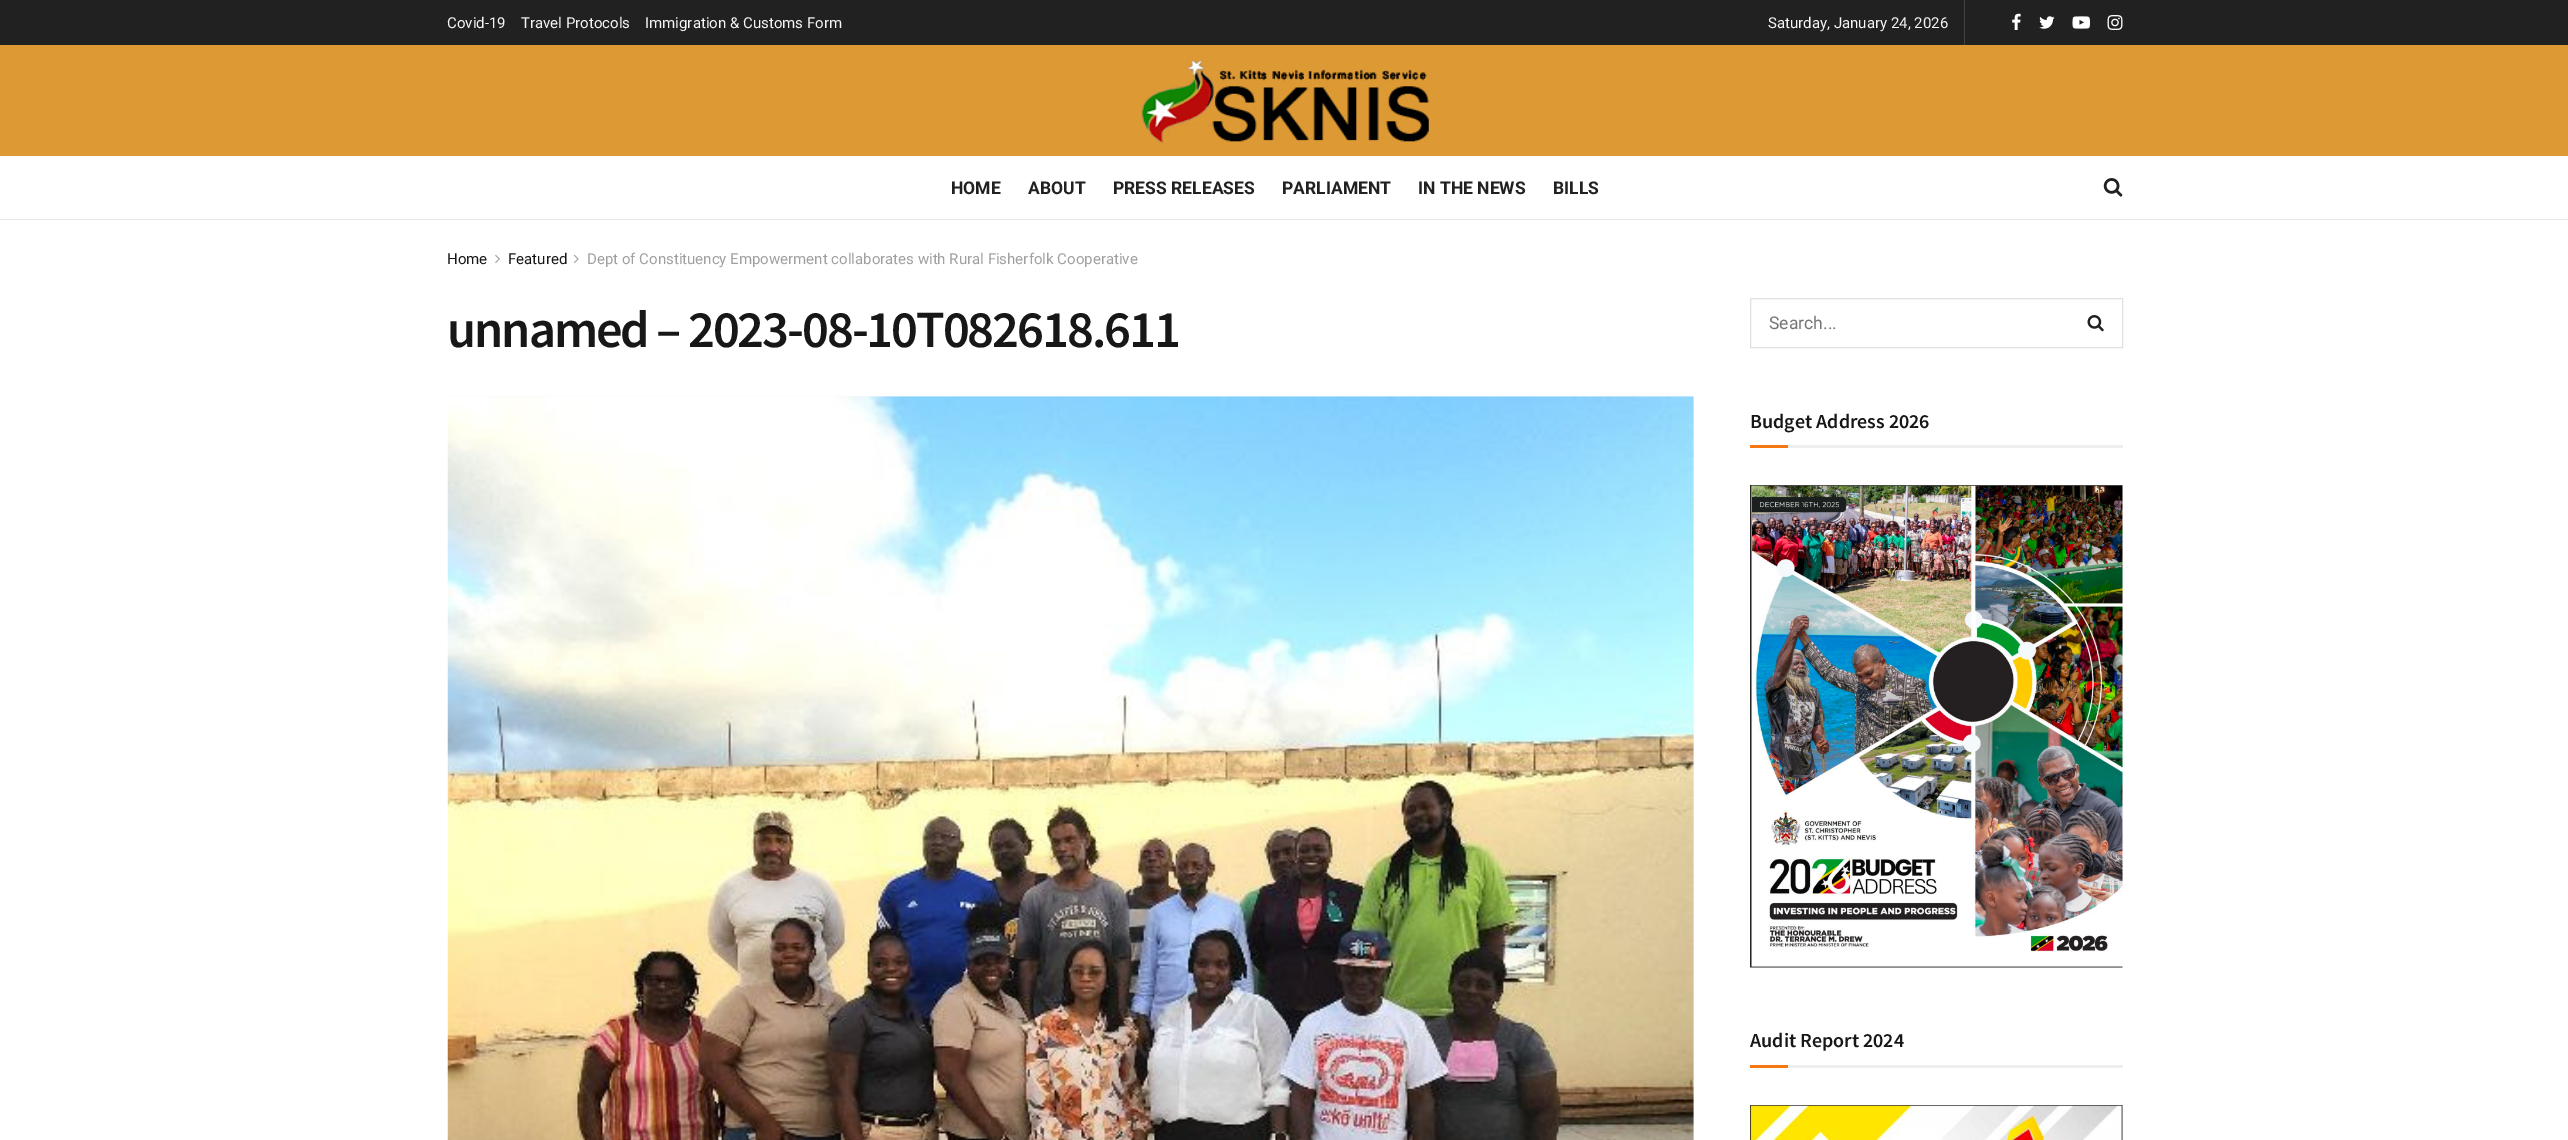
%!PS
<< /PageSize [2568 1140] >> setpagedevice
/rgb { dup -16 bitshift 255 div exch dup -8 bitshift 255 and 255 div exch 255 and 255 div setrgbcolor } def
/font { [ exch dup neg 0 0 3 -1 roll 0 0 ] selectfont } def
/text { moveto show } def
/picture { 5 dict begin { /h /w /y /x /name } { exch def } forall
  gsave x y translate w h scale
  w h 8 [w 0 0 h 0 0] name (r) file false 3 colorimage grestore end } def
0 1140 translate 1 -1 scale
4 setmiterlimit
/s1 { /Roboto-Regular 15 font 16#F5F5F5 rgb } def
/s2 { /Roboto-Bold 17.5 font 16#212121 rgb } def
/s3 { /Roboto-Regular 15 font 16#171717 rgb } def
/s4 { /Roboto-Regular 15 font 16#A0A0A0 rgb } def
/s5 { /Roboto-Regular 17.5 font 16#757575 rgb } def
/s6 { /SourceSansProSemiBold-SemiBold 20 font 16#171717 rgb } def
16#FFFFFF rgb
0 0 2568 1140 rectfill
16#212121 rgb
0 0 2568 45 rectfill
s1
(Covid-19) 447 28 text
(Travel Protocols) 521 28 text
(Immigration & Customs Form) 645 28 text
16#424242 rgb
1964 0 1 45 rectfill
s1
(Saturday, January 24, 2026) 1768 28 text
(pic1.raw) 2012 13 9 17 picture
(pic2.raw) 2039 16 16 13 picture
(pic3.raw) 2072 16 18 13 picture
(pic4.raw) 2107 15 16 15 picture
16#DD9933 rgb
0 45 2568 111 rectfill
(pic5.raw) 1141 60 288 84 picture
16#E8E8E8 rgb
0 219 2568 1 rectfill
s2
(HOME) 951 194 text
(ABOUT) 1028 194 text
(PRESS RELEASES) 1113 194 text
(PARLIAMENT) 1282 194 text
(IN THE NEWS) 1418 194 text
(BILLS) 1553 194 text
(pic6.raw) 2103 178 20 19 picture
s3
(Home) 447 264 text
(pic7.raw) 495 254 5 9 picture
(Featured) 508 264 text
(pic8.raw) 573 254 6 9 picture
s4
(Dept of Constituency Empowerment collaborates with Rural Fisherfolk Cooperative) 587 264 text
/SourceSansProSemiBold-SemiBold 52.5 font
16#171717 rgb
447 347 moveto -2.1 0 (unnamed – 2023-08-10T082618.611) ashow
16#F7F7F7 rgb
448 396 1246 744 rectfill
(pic9.raw) 447 396 1247 744 picture
16#E0E0E0 rgb
1750.5 298.5 372 49 rectstroke
s5
(Search...) 1769 329 text
(pic10.raw) 2087 315 17 17 picture
16#EEEEEE rgb
1788 445 335 3 rectfill
s6
(Budget Address 2026) 1750 428 text
16#F57811 rgb
1750 445 38 3 rectfill
(pic11.raw) 1750 485 373 483 picture
16#EEEEEE rgb
1788 1065 335 3 rectfill
s6
(Audit Report 2024) 1750 1047 text
16#F57811 rgb
1750 1065 38 3 rectfill
(pic12.raw) 1750 1105 373 35 picture
showpage
